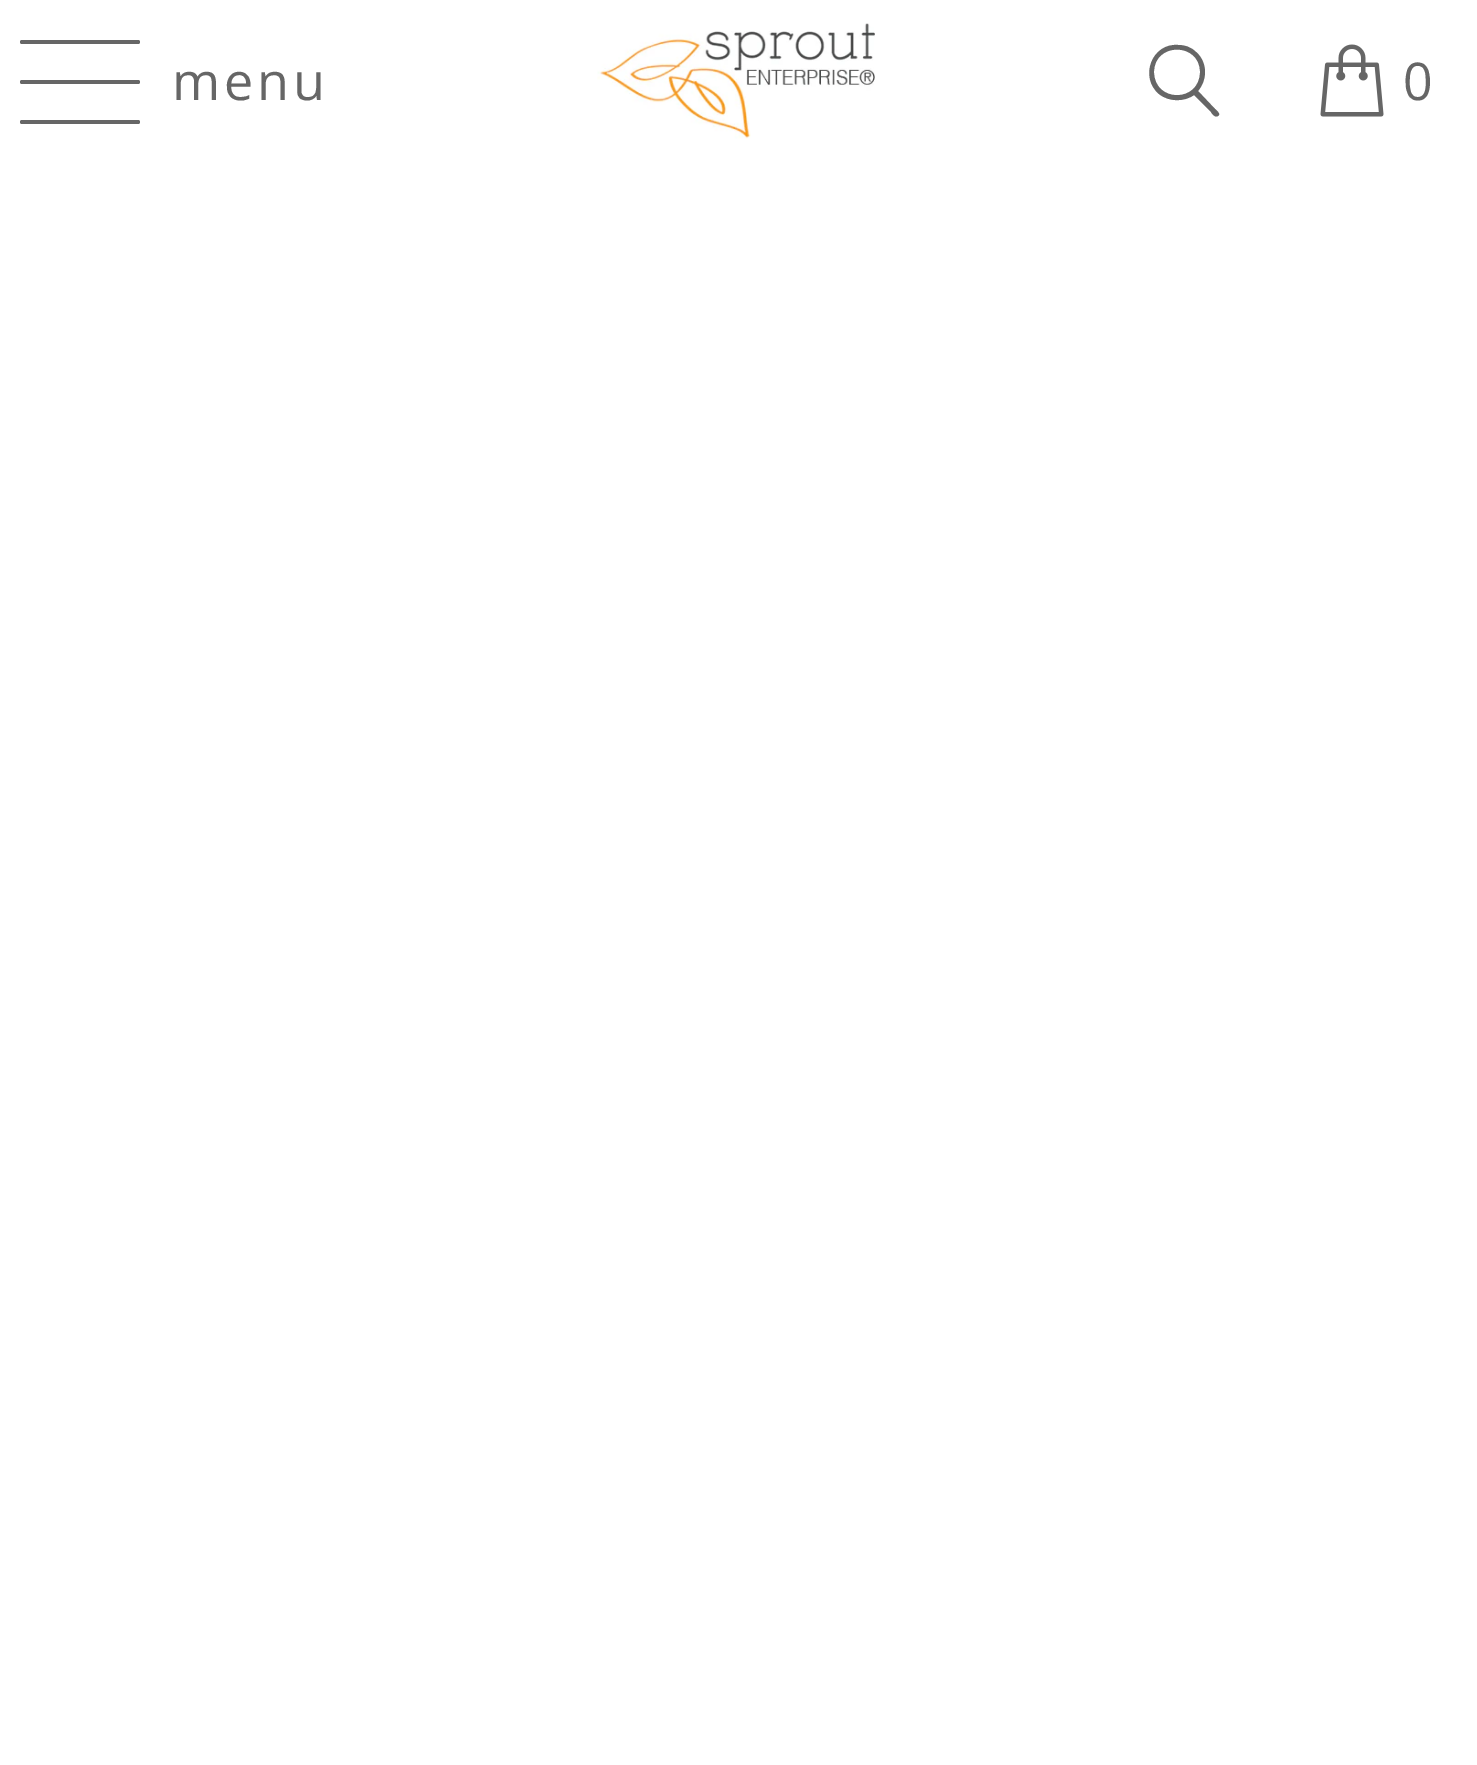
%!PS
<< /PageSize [1477 1765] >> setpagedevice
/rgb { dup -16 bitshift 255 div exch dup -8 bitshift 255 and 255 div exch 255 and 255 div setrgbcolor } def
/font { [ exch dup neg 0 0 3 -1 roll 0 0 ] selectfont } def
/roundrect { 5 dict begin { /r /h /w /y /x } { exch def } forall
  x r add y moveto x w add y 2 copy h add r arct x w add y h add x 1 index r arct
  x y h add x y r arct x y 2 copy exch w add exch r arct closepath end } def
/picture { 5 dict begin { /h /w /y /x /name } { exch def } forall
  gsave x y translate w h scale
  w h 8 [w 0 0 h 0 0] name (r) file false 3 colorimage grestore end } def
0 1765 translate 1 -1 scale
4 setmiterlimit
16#FFFFFF rgb
0 0 1477 1765 rectfill
16#666666 rgb
20 40 120 4 2 roundrect fill
20 80 120 4 2 roundrect fill
20 120 120 4 2 roundrect fill
/OpenSans-Regular 52 font
172 100 moveto 4 0 (menu) ashow
(pic1.raw) 597 23 278 116 picture
1198 91 moveto 1202 86 1205 80 1205 72 curveto 1205 65 1202 57 1196 52 curveto 1191 47 1185 45 1178 45 curveto 1152 43 1139 77 1159 94 curveto 1169 102 1184 102 1194 95 curveto 1211 112 lineto 1212 114 1216 119 1219 115 curveto 1220 113 1216 110 1215 109 curveto closepath 1154 72 moveto 1154 42 1200 42 1200 72 curveto 1200 103 1154 103 1154 72 curveto closepath fill
(pic2.raw) 1320 44 64 73 picture
1403 100 moveto 4 0 (0) ashow
showpage
